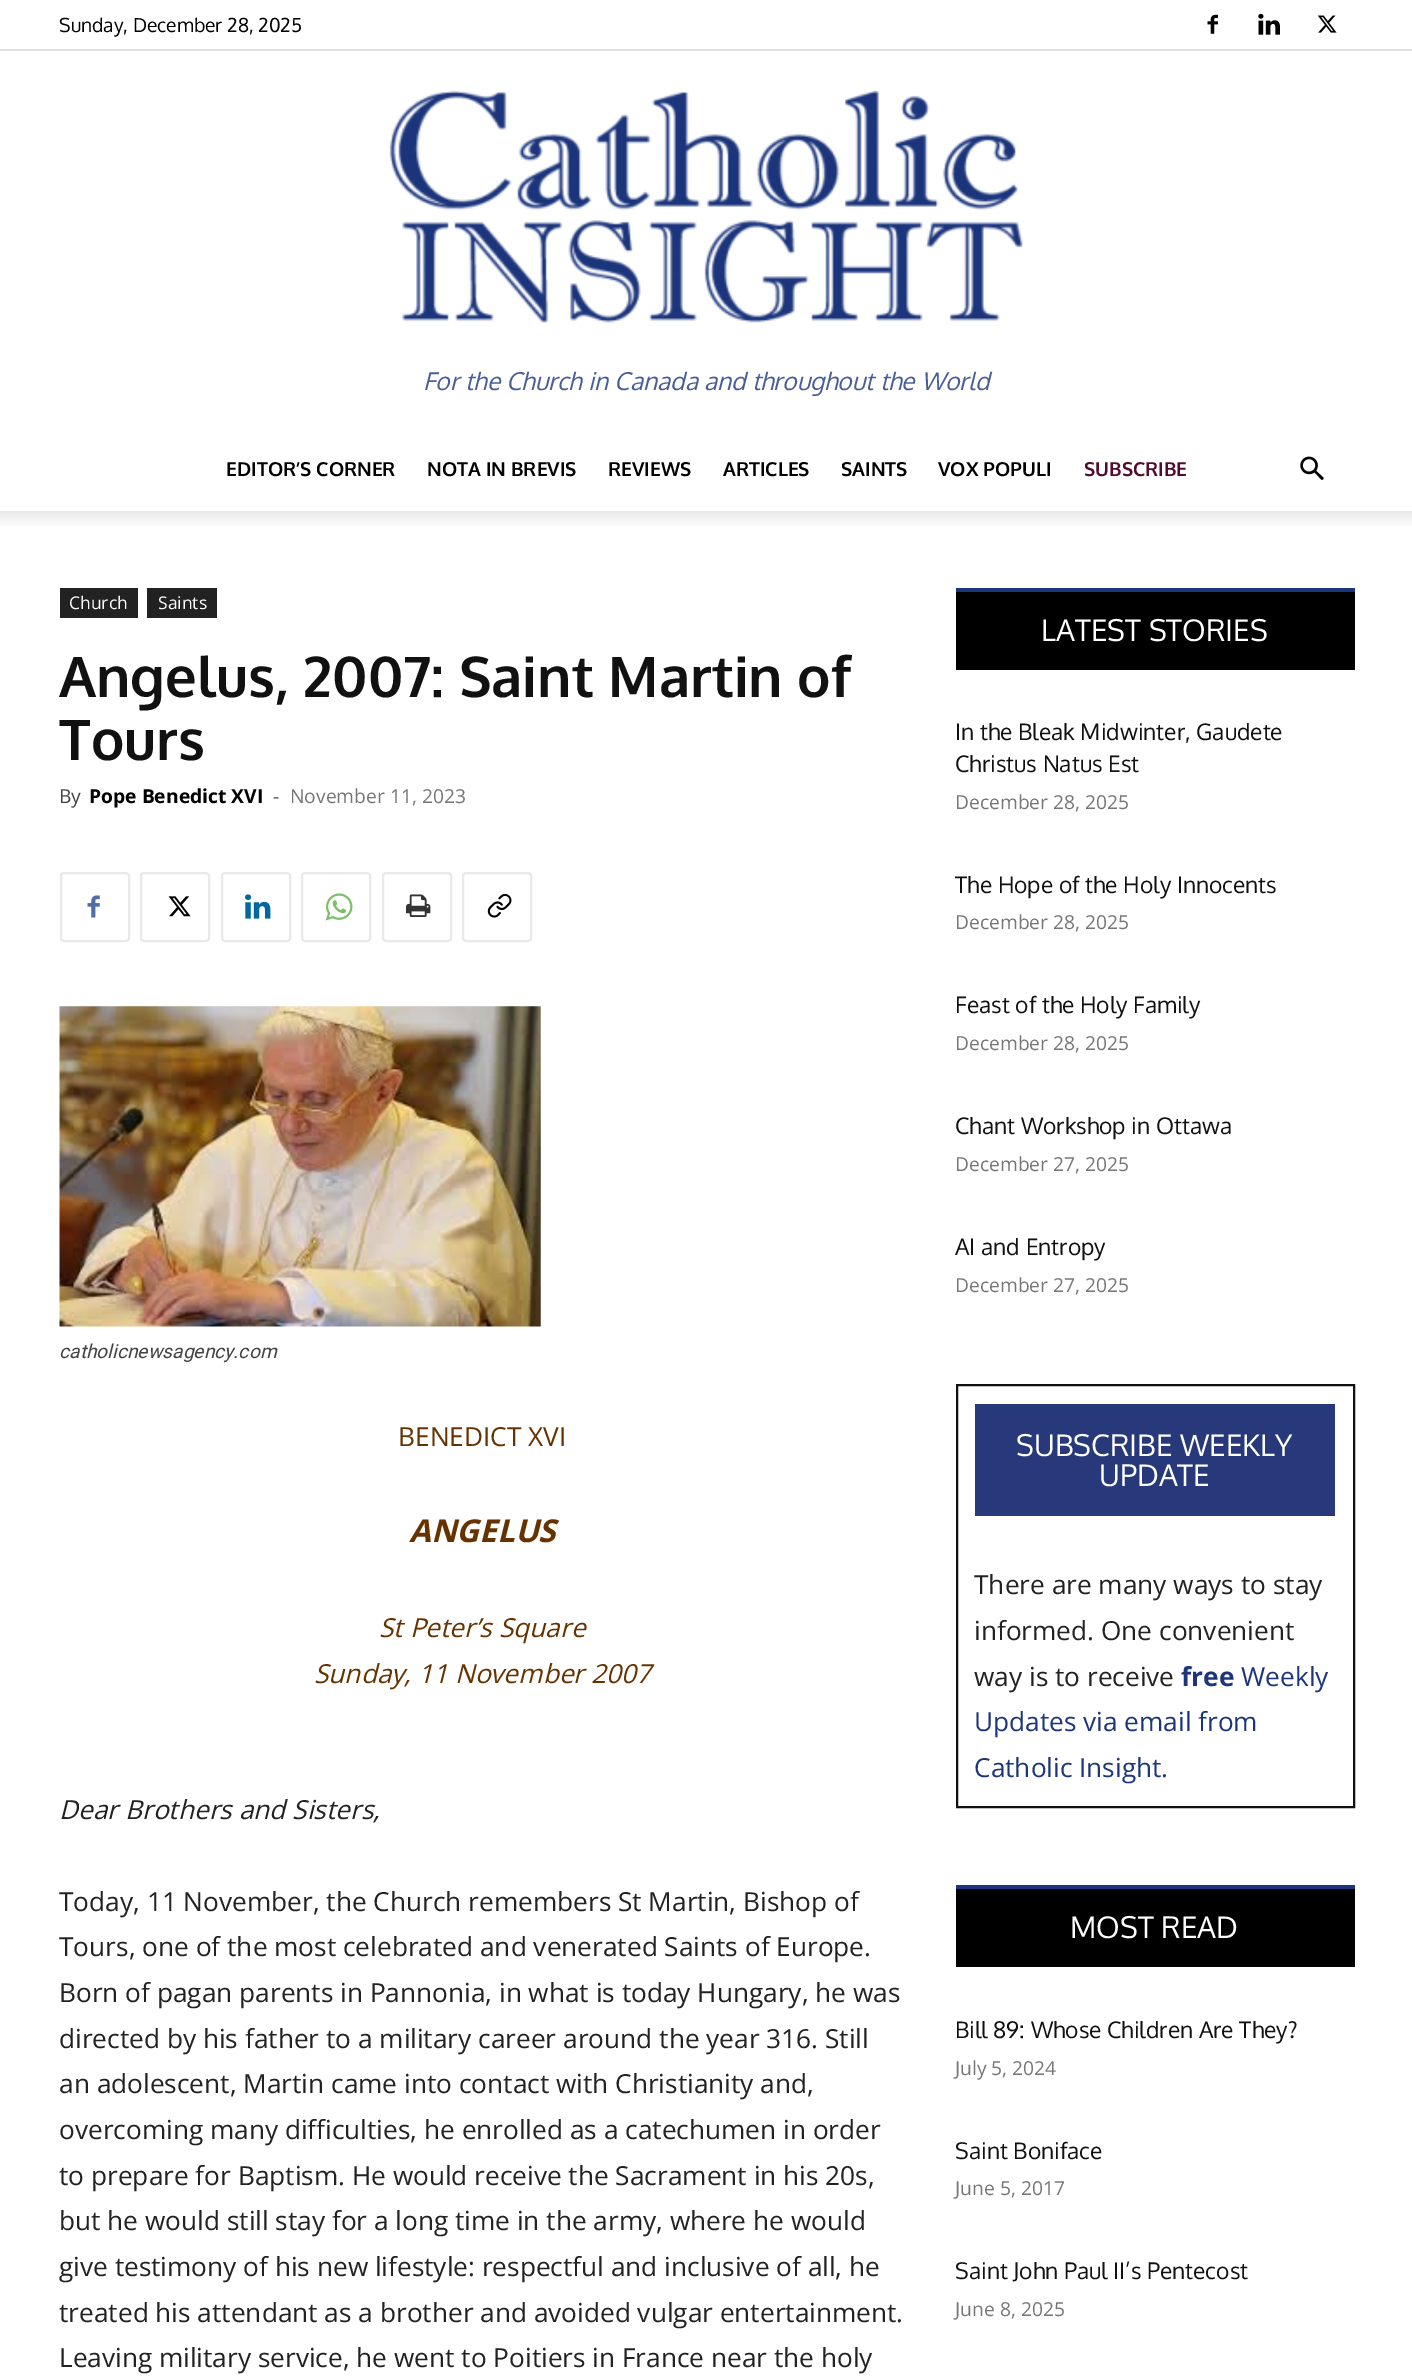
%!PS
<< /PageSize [1412 2378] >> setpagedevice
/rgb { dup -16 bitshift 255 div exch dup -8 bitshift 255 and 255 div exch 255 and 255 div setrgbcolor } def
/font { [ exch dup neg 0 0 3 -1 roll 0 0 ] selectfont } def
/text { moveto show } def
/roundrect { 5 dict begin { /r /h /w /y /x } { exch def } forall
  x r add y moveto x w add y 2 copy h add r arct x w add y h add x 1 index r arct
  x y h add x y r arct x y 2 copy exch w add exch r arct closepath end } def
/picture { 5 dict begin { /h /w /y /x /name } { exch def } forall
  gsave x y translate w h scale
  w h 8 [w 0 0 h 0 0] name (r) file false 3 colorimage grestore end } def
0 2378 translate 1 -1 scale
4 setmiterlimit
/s1 { /Oxygen-Regular 19.25 font 16#000000 rgb } def
/s2 { /Oxygen-Italic 24.5 font 16#495D96 rgb } def
/s3 { /Oxygen-Bold 19.25 font 16#000000 rgb } def
/s4 { /Oxygen-Bold 19.25 font 16#54092E rgb } def
/s5 { /OpenSans-Regular 17.5 font 16#FFFFFF rgb } def
/s6 { /Oxygen-Bold 56 font 16#111111 rgb } def
/s7 { /OpenSans-Regular 19.25 font 16#444444 rgb } def
/s8 { /OpenSans-Bold 19.25 font 16#000000 rgb } def
/s9 { /OpenSans-Regular 19.25 font 16#767676 rgb } def
/s10 { /Roboto-Italic 19.25 font 16#444444 rgb } def
/s11 { /OpenSans-Regular 26.25 font 16#663300 rgb } def
/s12 { /OpenSans-BoldItalic 31.5 font 16#663300 rgb } def
/s13 { /OpenSans-Italic 26.25 font 16#663300 rgb } def
/s14 { /OpenSans-Italic 26.25 font 16#222222 rgb } def
/s15 { /OpenSans-Regular 26.25 font 16#222222 rgb } def
/s16 { /Oxygen-Regular 29.75 font 16#FFFFFF rgb } def
/s17 { /Oxygen-Regular 22.75 font 16#111111 rgb } def
/s18 { /OpenSans-Bold 26.25 font 16#1C357C rgb } def
/s19 { /OpenSans-Regular 26.25 font 16#1C357C rgb } def
16#FFFFFF rgb
0 0 1412 2378 rectfill
16#E0E0E0 rgb
0 49 1412 2 rectfill
s1
(Sunday, December 28, 2025) 59 32 text
(pic1.raw) 1207 14 11 20 picture
(pic2.raw) 1258 13 22 22 picture
(pic3.raw) 1317 15 20 18 picture
(pic4.raw) 389 90 634 233 picture
s2
(For the Church in Canada and throughout the World) 423 390 text
s3
(EDITOR’S CORNER) 226 476 text
(NOTA IN BREVIS) 427 476 text
(REVIEWS) 608 476 text
(ARTICLES) 723 476 text
(SAINTS) 841 476 text
(VOX POPULI) 938 476 text
s4
(SUBSCRIBE) 1084 476 text
(pic5.raw) 1300 456 24 24 picture
(pic6.raw) 0 511 1412 15 picture
16#222222 rgb
60 588 78 30 rectfill
s5
(Church) 69 609 text
16#222222 rgb
147 588 70 30 rectfill
s5
(Saints) 158 609 text
s6
(Angelus, 2007: Saint Martin of) 59 697 text
(Tours) 59 760 text
s7
(By) 59 803 text
s8
(Pope Benedict XVI) 89 803 text
s7
(-) 273 803 text
s9
(November 11, 2023) 290 803 text
16#E9E9E9 rgb
2 setlinewidth
61 873 68 68 3 roundrect stroke
(pic7.raw) 87 895 13 23 picture
141 873 68 68 3 roundrect stroke
(pic8.raw) 168 896 23 21 picture
222 873 68 68 3 roundrect stroke
(pic9.raw) 245 894 26 25 picture
302 873 68 68 3 roundrect stroke
(pic10.raw) 325 893 28 28 picture
383 873 68 68 3 roundrect stroke
(pic11.raw) 406 894 25 23 picture
463 873 68 68 3 roundrect stroke
(pic12.raw) 487 893 25 25 picture
(pic13.raw) 59 1006 482 321 picture
s10
(catholicnewsagency.com) 59 1358 text
s11
(BENEDICT XVI) 398 1446 text
s12
(ANGELUS) 409 1542 text
s13
(St Peter’s Square) 379 1637 text
(Sunday, 11 November 2007) 314 1683 text
s14
(Dear Brothers and Sisters,) 59 1819 text
s15
(Today, 11 November, the Church remembers St Martin, Bishop of) 59 1911 text
(Tours, one of the most celebrated and venerated Saints of Europe.) 59 1956 text
(Born of pagan parents in Pannonia, in what is today Hungary, he was) 59 2002 text
(directed by his father to a military career around the year 316. Still) 59 2048 text
(an adolescent, Martin came into contact with Christianity and,) 59 2093 text
(overcoming many difficulties, he enrolled as a catechumen in order) 59 2139 text
(to prepare for Baptism. He would receive the Sacrament in his 20s,) 59 2185 text
(but he would still stay for a long time in the army, where he would) 59 2230 text
(give testimony of his new lifestyle: respectful and inclusive of all, he) 59 2276 text
(treated his attendant as a brother and avoided vulgar entertainment.) 59 2322 text
(Leaving military service, he went to Poitiers in France near the holy) 59 2367 text
16#000000 rgb
956 592 399 78 rectfill
16#1C357C rgb
956 588 399 4 rectfill
s16
(LATEST STORIES) 1041 641 text
s17
(In the Bleak Midwinter, Gaudete) 955 740 text
(Christus Natus Est) 955 772 text
s9
(December 28, 2025) 955 809 text
s17
(The Hope of the Holy Innocents) 955 893 text
s9
(December 28, 2025) 955 929 text
s17
(Feast of the Holy Family) 955 1013 text
s9
(December 28, 2025) 955 1050 text
s17
(Chant Workshop in Ottawa) 955 1134 text
s9
(December 27, 2025) 955 1171 text
s17
(AI and Entropy) 955 1255 text
s9
(December 27, 2025) 955 1292 text
16#111111 rgb
957 1385 397 422 rectstroke
16#27397B rgb
975 1404 360 112 rectfill
s16
(SUBSCRIBE WEEKLY) 1016 1456 text
(UPDATE) 1099 1486 text
s15
(There are many ways to stay) 974 1594 text
(informed. One convenient) 974 1640 text
(way is to receive) 974 1686 text
s18
(free) 1181 1686 text
s19
(Weekly) 1241 1686 text
(Updates via email from) 974 1731 text
(Catholic Insight.) 974 1777 text
16#000000 rgb
956 1889 399 78 rectfill
16#1C357C rgb
956 1885 399 4 rectfill
s16
(MOST READ) 1070 1938 text
s17
(Bill 89: Whose Children Are They?) 955 2038 text
s9
(July 5, 2024) 955 2075 text
s17
(Saint Boniface) 955 2159 text
s9
(June 5, 2017) 955 2195 text
s17
(Saint John Paul II’s Pentecost) 955 2279 text
s9
(June 8, 2025) 955 2316 text
showpage
